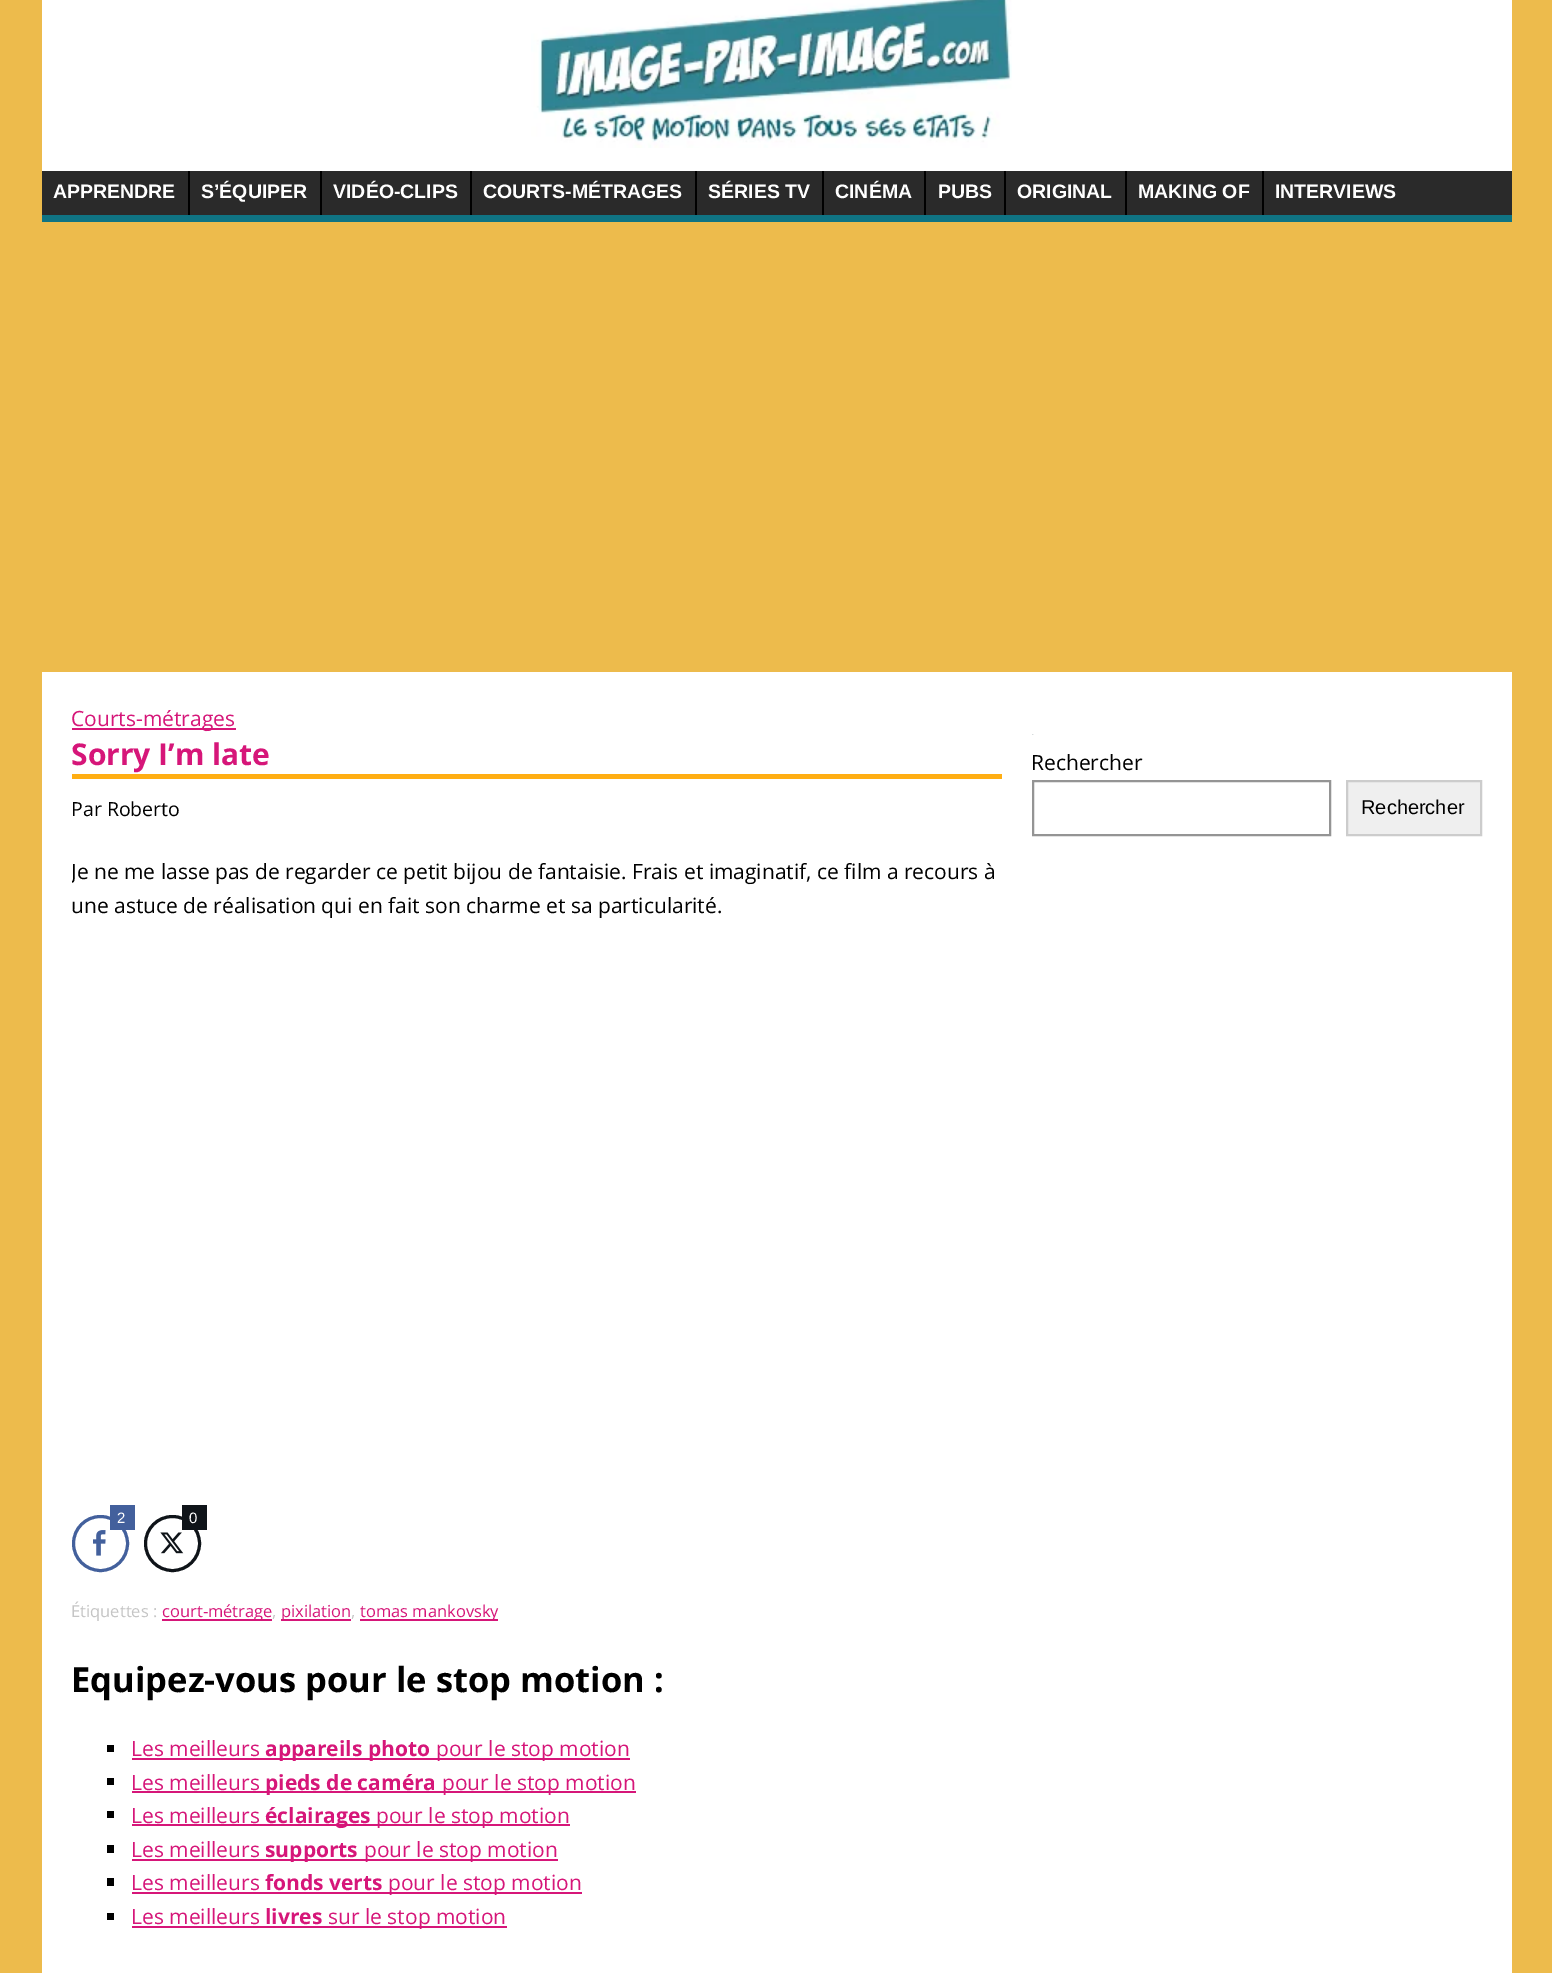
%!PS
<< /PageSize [1552 1973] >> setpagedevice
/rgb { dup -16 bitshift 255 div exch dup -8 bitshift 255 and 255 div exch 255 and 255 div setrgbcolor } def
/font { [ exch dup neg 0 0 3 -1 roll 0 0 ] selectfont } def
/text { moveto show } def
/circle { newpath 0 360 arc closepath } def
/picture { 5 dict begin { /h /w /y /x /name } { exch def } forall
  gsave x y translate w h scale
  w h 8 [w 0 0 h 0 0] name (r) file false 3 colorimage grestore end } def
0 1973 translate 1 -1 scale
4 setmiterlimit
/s1 { /LiberationSans-Bold 19.5 font 16#FFFFFF rgb } def
/s2 { /OpenSans-Regular 21 font 16#D61679 rgb } def
/s3 { /OpenSans-Bold 30 font 16#D61679 rgb } def
/s4 { /OpenSans-Regular 19.5 font 16#000000 rgb } def
/s5 { /OpenSans-Regular 21 font 16#000000 rgb } def
/s6 { /LiberationSans-Regular 15 font 16#FFFFFF rgb } def
/s7 { /OpenSans-Regular 16.5 font 16#C5C5C5 rgb } def
/s8 { /OpenSans-Regular 16.5 font 16#D61679 rgb } def
/s9 { /OpenSans-Bold 34.5 font 16#000000 rgb } def
/s10 { /OpenSans-Bold 21 font 16#D61679 rgb } def
/s11 { /LiberationSans-Regular 20 font 16#000000 rgb } def
16#EDBB4C rgb
0 0 1552 1973 rectfill
16#FFFFFF rgb
42 0 1470 171 rectfill
(pic1.raw) 531 0 481 148 picture
16#2A2A2A rgb
42 171 1470 44 rectfill
16#0F7383 rgb
42 215 1470 7 rectfill
s1
(APPRENDRE) 53 198 text
16#000000 rgb
188 171 2 44 rectfill
s1
(S’ÉQUIPER) 201 198 text
16#000000 rgb
320 171 2 44 rectfill
s1
(VIDÉO-CLIPS) 333 198 text
16#000000 rgb
470 171 2 44 rectfill
s1
(COURTS-MÉTRAGES) 483 198 text
16#000000 rgb
695 171 2 44 rectfill
s1
(SÉRIES TV) 708 198 text
16#000000 rgb
822 171 2 44 rectfill
s1
(CINÉMA) 835 198 text
16#000000 rgb
924 171 2 44 rectfill
s1
(PUBS) 938 198 text
16#000000 rgb
1004 171 2 44 rectfill
s1
(ORIGINAL) 1017 198 text
16#000000 rgb
1125 171 2 44 rectfill
s1
(MAKING OF) 1138 198 text
16#000000 rgb
1262 171 2 44 rectfill
s1
(INTERVIEWS) 1275 198 text
42 672 1470 1301 rectfill
16#D61679 rgb
72 728 164 2 rectfill
s2
(Courts-métrages) 71 726 text
16#FFAE13 rgb
72 774 930 5 rectfill
s3
(Sorry I’m late) 71 765 text
s4
(Par Roberto) 71 816 text
gsave
72 702 930 1262 rectclip
s5
(Je ne me lasse pas de regarder ce petit bijou de fantaisie. Frais et imaginatif, ce film a recours à) 71 879 text
grestore
s5
(une astuce de réalisation qui en fait son charme et sa particularité.) 71 913 text
16#43609C rgb
3 setlinewidth
100.5 1543.5 27 circle stroke
110 1505 25 25 rectfill
s6
(2) 117 1523 text
(pic2.raw) 93 1530 13 26 picture
16#0F1419 rgb
172.5 1543.5 27 circle stroke
182 1505 25 25 rectfill
s6
(0) 189 1523 text
(pic3.raw) 160 1532 24 22 picture
s7
(Étiquettes :) 71 1617 text
16#D61679 rgb
162 1619 110 2 rectfill
(court-métrage) 162 1617 text
s7
(,) 272 1617 text
16#D61679 rgb
281 1619 70 2 rectfill
(pixilation) 281 1617 text
s7
(,) 351 1617 text
16#D61679 rgb
360 1619 138 2 rectfill
(tomas mankovsky) 360 1617 text
s9
(Equipez-vous pour le stop motion :) 71 1692 text
107 1745 7 7 rectfill
s2
(Les meilleurs) 131 1756 text
132 1758 498 2 rectfill
s10
(appareils photo) 265 1756 text
s2
(pour le stop motion) 436 1756 text
16#000000 rgb
107 1778 7 7 rectfill
s2
(Les meilleurs) 131 1790 text
132 1791 504 2 rectfill
s10
(pieds de caméra) 265 1790 text
s2
(pour le stop motion) 442 1790 text
16#000000 rgb
107 1811 7 7 rectfill
s2
(Les meilleurs) 131 1823 text
132 1824 438 2 rectfill
s10
(éclairages) 265 1823 text
s2
(pour le stop motion) 376 1823 text
16#000000 rgb
107 1845 7 8 rectfill
s2
(Les meilleurs) 131 1857 text
132 1859 426 2 rectfill
s10
(supports) 265 1857 text
s2
(pour le stop motion) 364 1857 text
16#000000 rgb
107 1878 7 8 rectfill
s2
(Les meilleurs) 131 1890 text
s10
(fonds verts) 265 1890 text
132 1892 450 2 rectfill
s2
(pour le stop motion) 388 1890 text
16#000000 rgb
107 1913 7 7 rectfill
s2
(Les meilleurs) 131 1924 text
s10
(livres) 265 1924 text
132 1926 375 2 rectfill
s2
(sur le stop motion) 328 1924 text
(pic4.raw) 1032 734 2 1 picture
s5
(Rechercher) 1031 770 text
16#949494 rgb
2 setlinewidth
1033 781 297 54 rectstroke
16#EFEFEF rgb
1347 781 moveto 1481 781 lineto 1481 835 lineto 1347 835 lineto closepath gsave fill grestore
16#CCCCCC rgb
stroke
s11
(Rechercher) 1361 814 text
showpage
